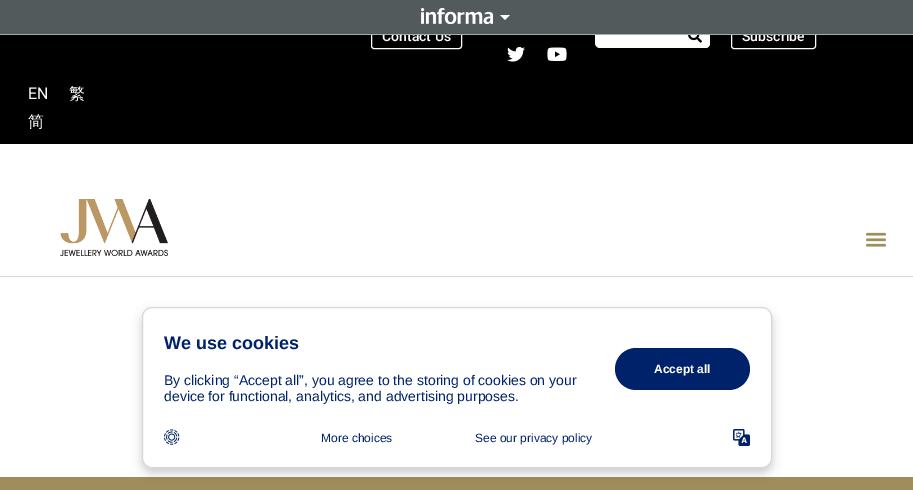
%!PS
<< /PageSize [913 490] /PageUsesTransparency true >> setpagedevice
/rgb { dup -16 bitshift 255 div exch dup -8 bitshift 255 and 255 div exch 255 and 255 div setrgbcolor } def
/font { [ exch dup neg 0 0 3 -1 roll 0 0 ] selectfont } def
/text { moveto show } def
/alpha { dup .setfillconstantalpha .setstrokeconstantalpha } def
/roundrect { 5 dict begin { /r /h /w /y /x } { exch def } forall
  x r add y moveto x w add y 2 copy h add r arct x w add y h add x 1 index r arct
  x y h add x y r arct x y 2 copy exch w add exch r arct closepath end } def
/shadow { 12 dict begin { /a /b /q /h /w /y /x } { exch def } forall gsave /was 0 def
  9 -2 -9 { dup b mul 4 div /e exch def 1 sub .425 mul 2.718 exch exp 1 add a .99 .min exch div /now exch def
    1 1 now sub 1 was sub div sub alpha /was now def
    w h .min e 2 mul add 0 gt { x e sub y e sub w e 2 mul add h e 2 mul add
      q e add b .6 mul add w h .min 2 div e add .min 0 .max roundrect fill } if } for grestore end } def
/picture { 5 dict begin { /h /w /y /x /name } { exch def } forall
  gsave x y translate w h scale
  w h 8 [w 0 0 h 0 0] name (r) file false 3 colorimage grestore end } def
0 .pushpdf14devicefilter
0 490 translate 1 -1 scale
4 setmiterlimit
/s1 { /Roboto-Medium 14 font 16#FFFFFF rgb } def
/s2 { /Roboto-Regular 16 font 16#FFFFFF rgb } def
/s3 { /WenQuanYiZenHei-Medium 16 font 16#FFFFFF rgb } def
/s4 { /LiberationSans-Bold 18 font 16#00226A rgb } def
/s5 { /LiberationSans-Regular 14 font 16#00226A rgb } def
/s6 { /LiberationSans-Bold 12 font 16#FFFFFF rgb } def
/s7 { /LiberationSans-Regular 12 font 16#00226A rgb } def
16#FFFFFF rgb
0 0 913 490 rectfill
16#000000 rgb
0 35 913 109 rectfill
16#FFFFFF rgb
371.5 23.5 90 25 2.5 roundrect stroke
s1
(Contact Us) 382 41 text
595 24 115 24 5 roundrect fill
679 24 moveto 705 24 lineto 708 24 710 26 710 29 curveto 710 43 lineto 710 46 708 48 705 48 curveto 679 48 lineto closepath fill
731.5 23.5 84 25 2.5 roundrect stroke
(Subscribe) 742 41 text
16#525A5C rgb
0 0 913 34 rectfill
16#A5ACAF rgb
0 34 913 1 rectfill
(pic1.raw) 421 8 72 16 picture
16#FFFFFF rgb
500 15 moveto 510 15 lineto 505 20 lineto closepath fill
(pic2.raw) 688 35 14 8 picture
(pic3.raw) 507 46 18 16 picture
(pic4.raw) 547 47 20 14 picture
s2
(EN) 28 99 text
s3
(繁) 69 99 text
(简) 28 127 text
16#D8D8D8 rgb
0 276 913 1 rectfill
(pic5.raw) 60 199 108 57 picture
(pic6.raw) 865 232 22 15 picture
16#9F8D5C rgb
0 477 913 13 rectfill
16#000000 rgb
142 312 630 161 10 5 0.2 shadow
16#FFFFFF rgb
142.5 307.5 629 160 9.5 roundrect gsave fill grestore
16#D8D8D8 rgb
stroke
s4
(We use cookies) 164 349 text
s5
(By clicking “Accept all”, you agree to the storing of cookies on your) 164 385 text
(device for functional, analytics, and advertising purposes.) 164 401 text
615 348 135 42 21 roundrect fill
s6
(Accept all) 654 373 text
(pic7.raw) 164 429 16 16 picture
s7
(More choices) 321 442 text
(See our privacy policy) 475 442 text
(pic8.raw) 733 429 17 17 picture
.poppdf14devicefilter showpage
